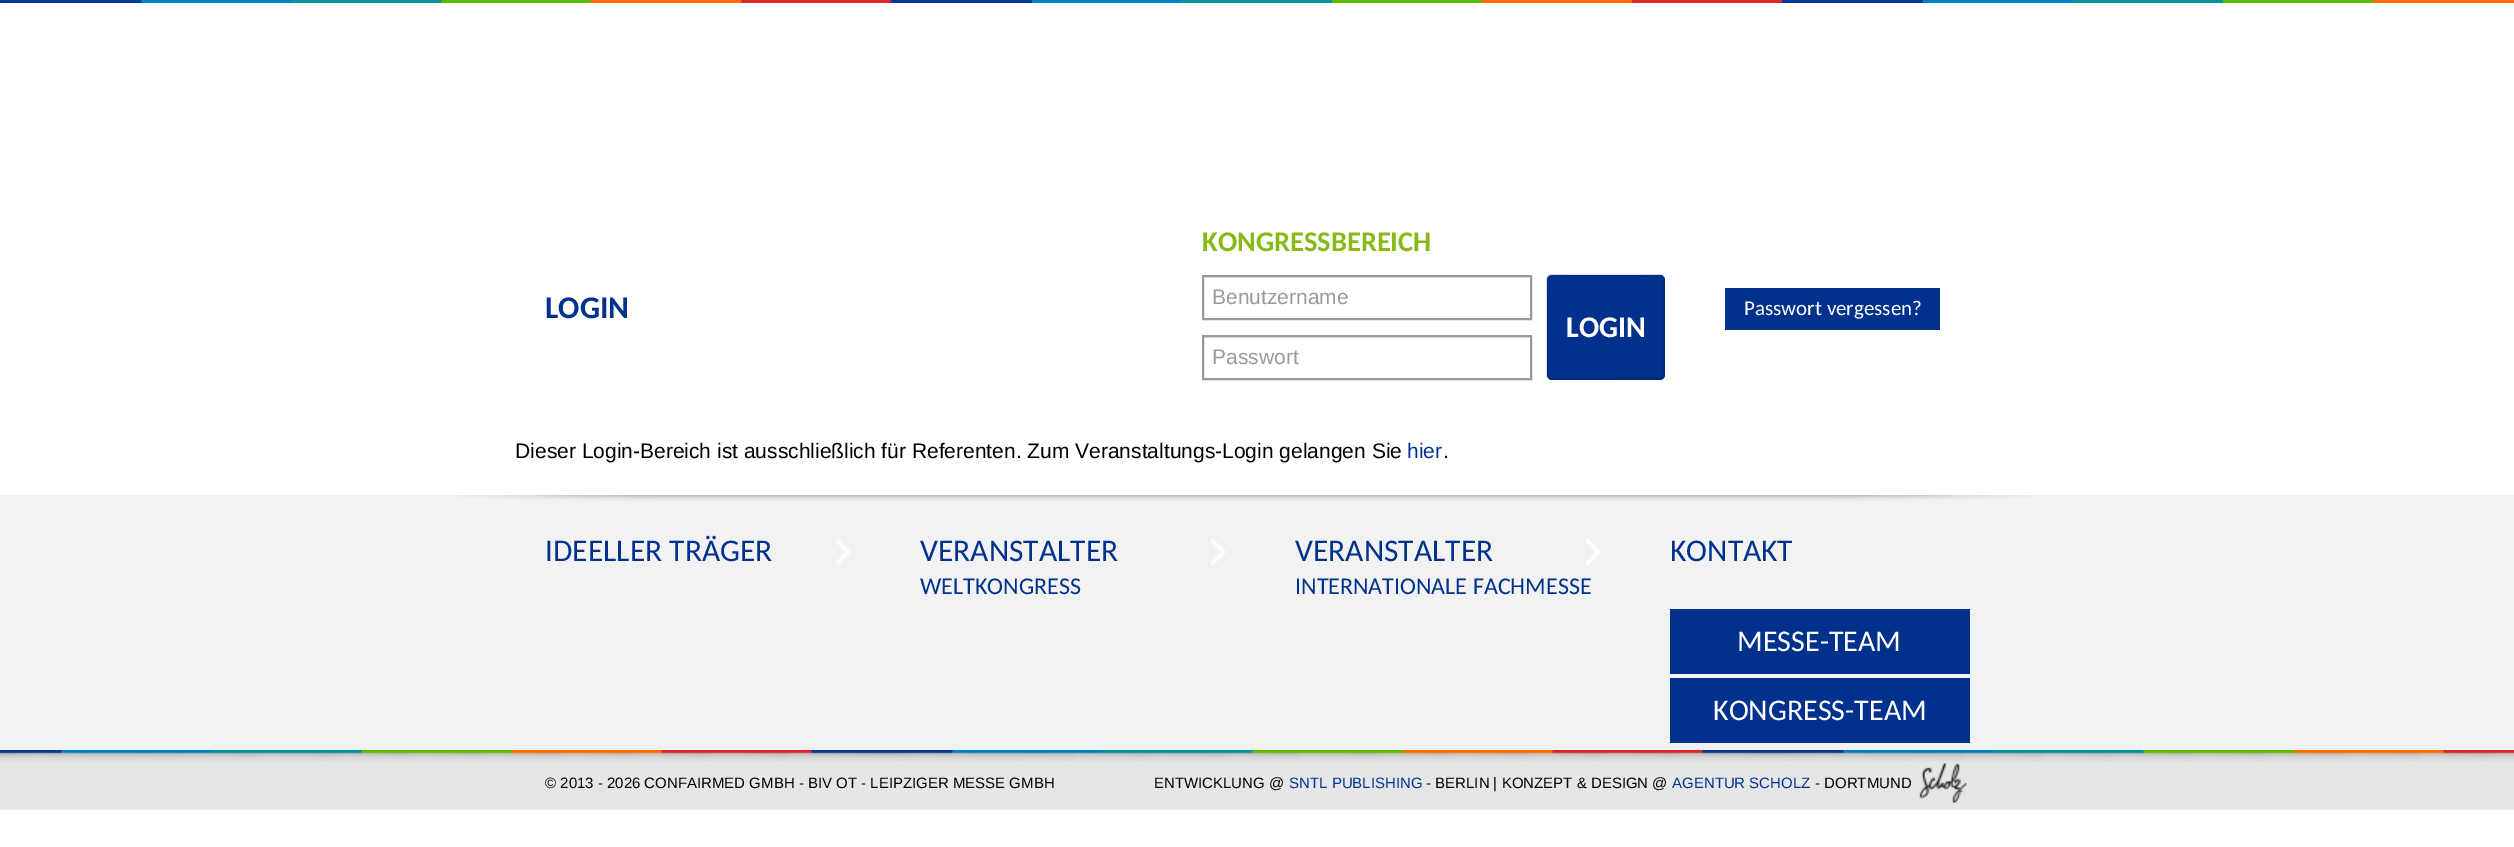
%!PS
<< /PageSize [2514 847] /PageUsesTransparency true >> setpagedevice
/rgb { dup -16 bitshift 255 div exch dup -8 bitshift 255 and 255 div exch 255 and 255 div setrgbcolor } def
/font { [ exch dup neg 0 0 3 -1 roll 0 0 ] selectfont } def
/text { moveto show } def
/alpha { dup .setfillconstantalpha .setstrokeconstantalpha } def
/roundrect { 5 dict begin { /r /h /w /y /x } { exch def } forall
  x r add y moveto x w add y 2 copy h add r arct x w add y h add x 1 index r arct
  x y h add x y r arct x y 2 copy exch w add exch r arct closepath end } def
/picture { 5 dict begin { /h /w /y /x /name } { exch def } forall
  gsave x y translate w h scale
  w h 8 [w 0 0 h 0 0] name (r) file false 3 colorimage grestore end } def
0 .pushpdf14devicefilter
0 847 translate 1 -1 scale
4 setmiterlimit
/s1 { /Carlito-Bold 31.5 font 16#00318D rgb } def
/s2 { /Carlito-Bold 28.5 font 16#89B916 rgb } def
/s3 { /LiberationSans-Regular 21 font 16#999999 rgb } def
/s4 { /Carlito-Bold 30 font 16#FFFFFF rgb } def
/s5 { /Carlito-Regular 21 font 16#FFFFFF rgb } def
/s6 { /LiberationSans-Regular 21 font 16#000000 rgb } def
/s7 { /LiberationSans-Regular 21 font 16#00318D rgb } def
/s8 { /Carlito-Regular 31.5 font 16#00318D rgb } def
/s9 { /Carlito-Regular 24 font 16#00318D rgb } def
/s10 { /Carlito-Regular 30 font 16#FFFFFF rgb } def
/s11 { /LiberationSans-Regular 15 font 16#000000 rgb } def
/s12 { /LiberationSans-Regular 15 font 16#00318D rgb } def
16#FFFFFF rgb
0 0 2514 847 rectfill
(pic1.raw) 0 0 2514 3 picture
s1
(LOGIN) 545 318 text
s2
(KONGRESSBEREICH) 1202 251 text
16#ECECEC rgb
1203 277 327 1 rectfill
16#999999 rgb
2 setlinewidth
1203 276 328 43 rectstroke
s3
(Benutzername) 1212 304 text
16#ECECEC rgb
1203 337 327 1 rectfill
16#999999 rgb
1203 336 328 43 rectstroke
(Passwort) 1212 364 text
16#00318D rgb
1547 275 118 105 5 roundrect fill
0.25 alpha
16#000000 rgb
1.5 setlinewidth
1663 377.5 moveto 1661 378.5 lineto 1569 379 lineto 1551 379 lineto 1548.5 377.5 lineto stroke
0.15 alpha
1548.5 377.5 moveto 1547 375 lineto 1547 295 lineto 1547 270.5 1544 275 1569 275 curveto 1642 275 lineto 1667.5 275 1664 270.5 1664 295 curveto 1664 375 lineto 1663 377.5 lineto stroke
1 alpha
s4
(LOGIN) 1566 337 text
16#00318D rgb
1725 288 215 42 rectfill
s5
(Passwort vergessen?) 1744 315 text
s6
(Dieser Login-Bereich ist ausschließlich für Referenten. Zum Veranstaltungs-Login gelangen Sie) 515 458 text
s7
(hier) 1407 458 text
s6
(.) 1443 458 text
16#F2F2F2 rgb
0 495 2514 255 rectfill
(pic2.raw) 457 495 1575 6 picture
(pic3.raw) 835 538 16 28 picture
s8
(IDEELLER TRÄGER) 545 561 text
(pic3.raw) 1210 538 16 28 picture
(VERANSTALTER) 920 561 text
s9
(WELTKONGRESS) 920 594 text
(pic3.raw) 1585 538 16 28 picture
s8
(VERANSTALTER) 1295 561 text
s9
(INTERNATIONALE FACHMESSE) 1295 594 text
s8
(KONTAKT) 1670 561 text
1670 609 300 65 rectfill
s10
(MESSE-TEAM) 1737 651 text
16#00318D rgb
1670 678 300 65 rectfill
s10
(KONGRESS-TEAM) 1713 720 text
16#E6E6E6 rgb
0 762 2514 48 rectfill
(pic4.raw) 0 750 2514 12 picture
s11
(© 2013 - 2026 CONFAIRMED GMBH - BIV OT - LEIPZIGER MESSE GMBH) 545 788 text
(ENTWICKLUNG @) 1154 788 text
s12
(SNTL PUBLISHING) 1289 788 text
s11
(- BERLIN | KONZEPT & DESIGN @) 1426 788 text
s12
(AGENTUR SCHOLZ) 1672 788 text
s11
(- DORTMUND) 1815 788 text
(pic5.raw) 1919 763 48 40 picture
.poppdf14devicefilter showpage
